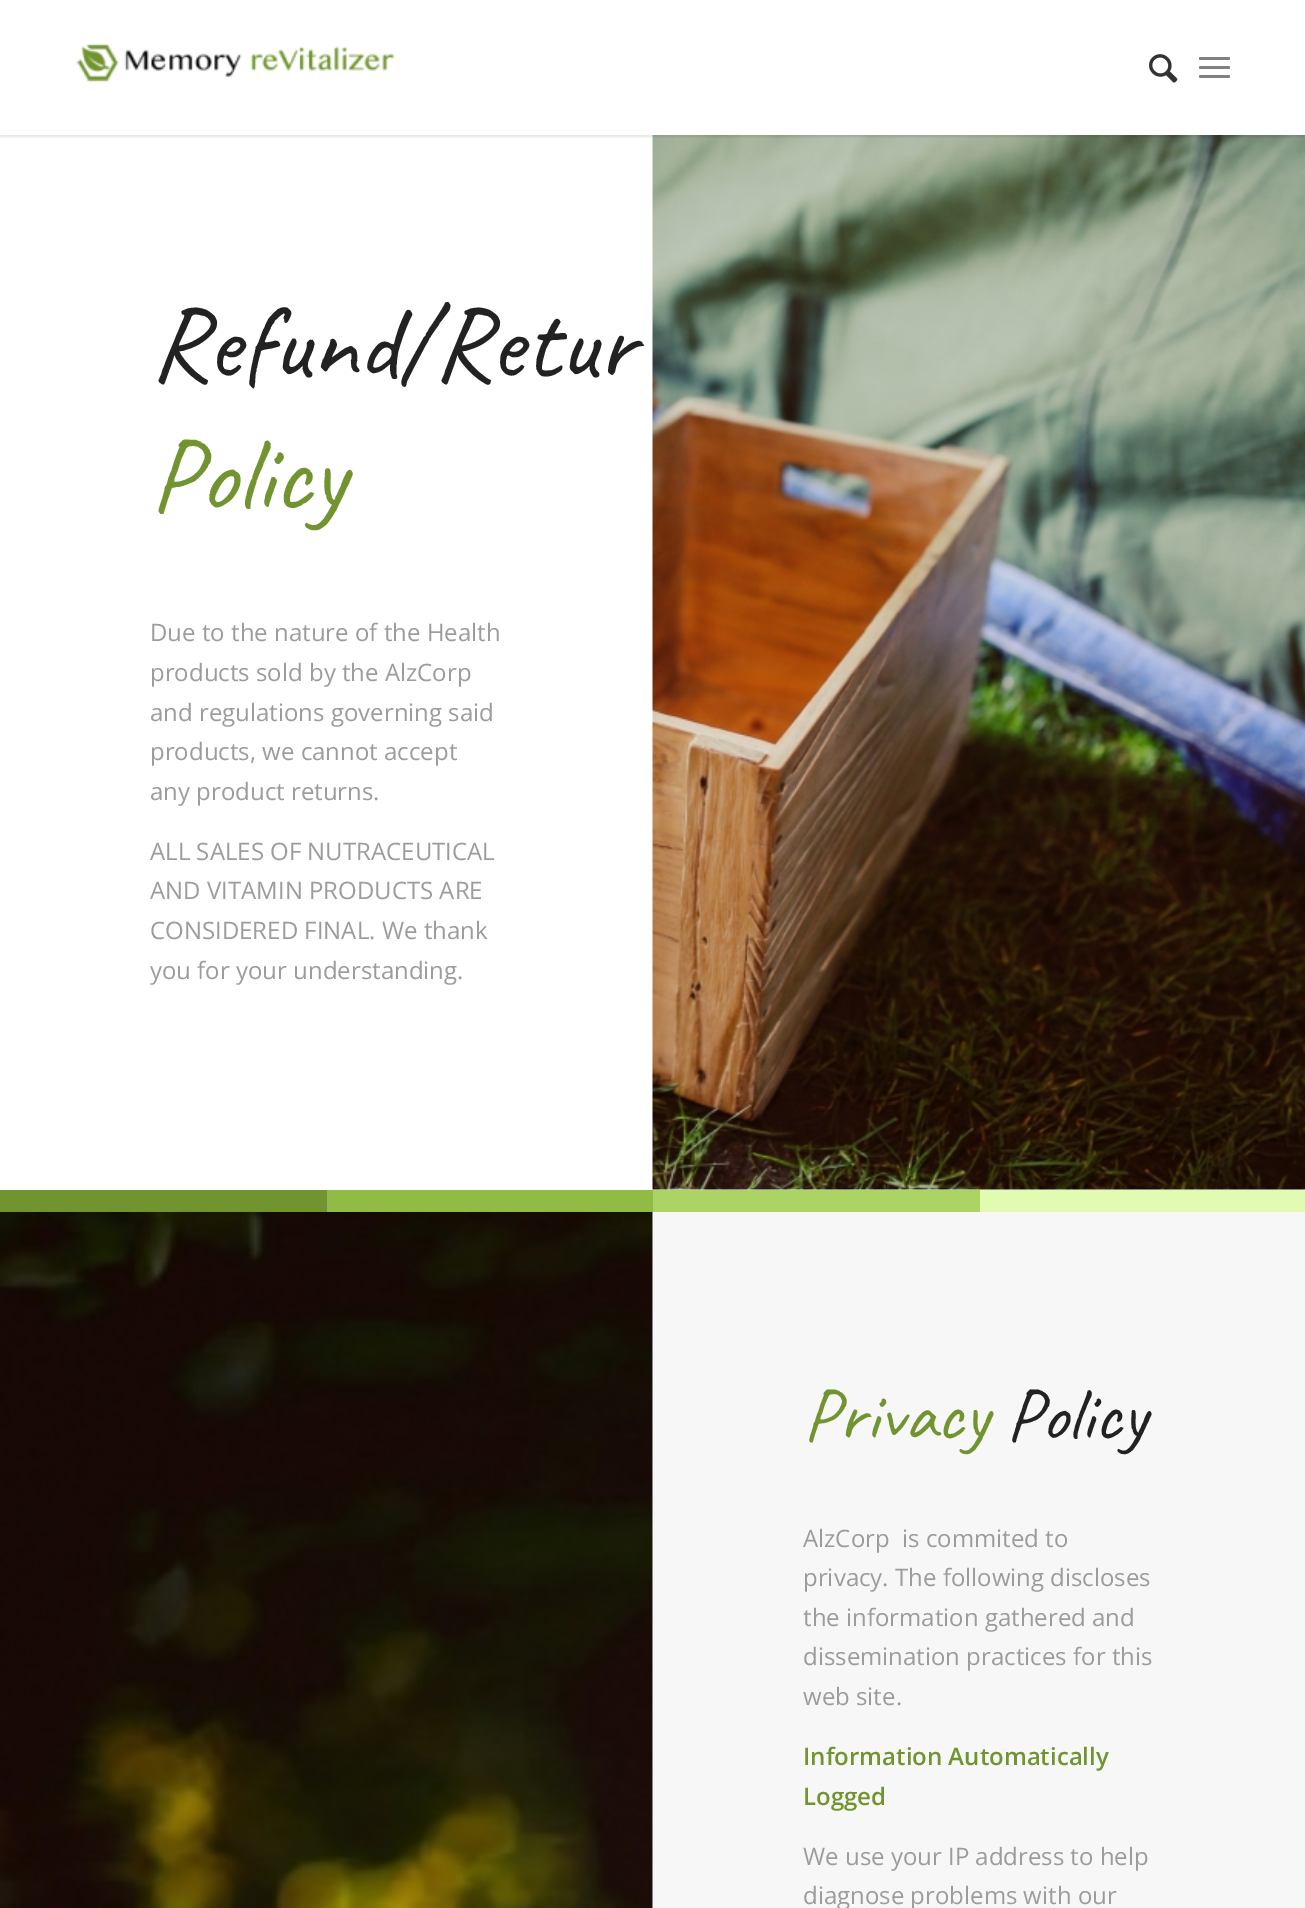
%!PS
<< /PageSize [1305 1908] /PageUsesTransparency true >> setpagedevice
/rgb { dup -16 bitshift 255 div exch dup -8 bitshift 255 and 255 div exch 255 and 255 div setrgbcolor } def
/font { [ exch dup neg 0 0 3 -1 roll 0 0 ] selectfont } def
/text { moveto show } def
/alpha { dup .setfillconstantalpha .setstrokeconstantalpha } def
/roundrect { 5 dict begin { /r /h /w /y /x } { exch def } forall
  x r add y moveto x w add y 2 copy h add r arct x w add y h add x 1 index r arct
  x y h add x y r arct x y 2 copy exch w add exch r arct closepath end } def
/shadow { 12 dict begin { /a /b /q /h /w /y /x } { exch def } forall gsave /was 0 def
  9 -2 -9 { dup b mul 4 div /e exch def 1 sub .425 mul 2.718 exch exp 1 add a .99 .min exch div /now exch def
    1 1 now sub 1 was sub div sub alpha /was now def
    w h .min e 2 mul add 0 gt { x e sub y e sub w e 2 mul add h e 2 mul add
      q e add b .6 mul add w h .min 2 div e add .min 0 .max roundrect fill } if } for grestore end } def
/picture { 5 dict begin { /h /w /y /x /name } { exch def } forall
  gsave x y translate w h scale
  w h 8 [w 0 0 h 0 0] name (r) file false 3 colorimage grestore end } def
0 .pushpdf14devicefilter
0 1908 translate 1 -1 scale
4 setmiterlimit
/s1 { /Caveat-Regular 105 font 16#222222 rgb } def
/s2 { /Caveat-Regular 105 font 16#719430 rgb } def
/s3 { /OpenSans-Regular 24 font 16#9C9C9C rgb } def
/s4 { /Caveat-Regular 75 font 16#719430 rgb } def
/s5 { /Caveat-Regular 75 font 16#222222 rgb } def
/s6 { /OpenSans-SemiBold 24 font 16#719430 rgb } def
16#FFFFFF rgb
0 0 1305 1908 rectfill
(pic3.raw) 652 135 653 1055 picture
gsave
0 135 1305 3 rectclip
16#000000 rgb
-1 -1 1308 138 0 1.5 0.1 shadow
grestore
(pic1.raw) 76 43 319 39 picture
(pic2.raw) 1149 54 29 29 picture
16#808080 rgb
1199 66 31 3 1.5 roundrect fill
1199 57 31 3 1.5 roundrect fill
1199 75 31 3 1.5 roundrect fill
s1
(Refund/Retur) 150 377 text
s2
(Policy) 150 509 text
s3
(Due to the nature of the Health) 150 641 text
(products sold by the AlzCorp) 150 681 text
(and regulations governing said) 150 721 text
(products, we cannot accept) 150 760 text
(any product returns.) 150 800 text
(ALL SALES OF NUTRACEUTICAL) 150 860 text
(AND VITAMIN PRODUCTS ARE) 150 899 text
(CONSIDERED FINAL. We thank) 150 939 text
(you for your understanding.) 150 979 text
16#719430 rgb
0 1190 327 22 rectfill
16#92BB46 rgb
327 1190 326 22 rectfill
16#ACD464 rgb
653 1190 327 22 rectfill
16#E1FBB2 rgb
980 1190 325 22 rectfill
(pic4.raw) 0 1212 653 696 picture
16#F7F7F7 rgb
653 1212 652 696 rectfill
s4
(Privacy) 803 1439 text
s5
(Policy) 1006 1439 text
s3
(AlzCorp  is commited to) 803 1547 text
(privacy. The following discloses) 803 1586 text
(the information gathered and) 803 1626 text
(dissemination practices for this) 803 1665 text
(web site.) 803 1705 text
s6
(Information Automatically) 803 1765 text
(Logged) 803 1805 text
s3
(We use your IP address to help) 803 1865 text
(diagnose problems with our) 803 1904 text
.poppdf14devicefilter showpage
